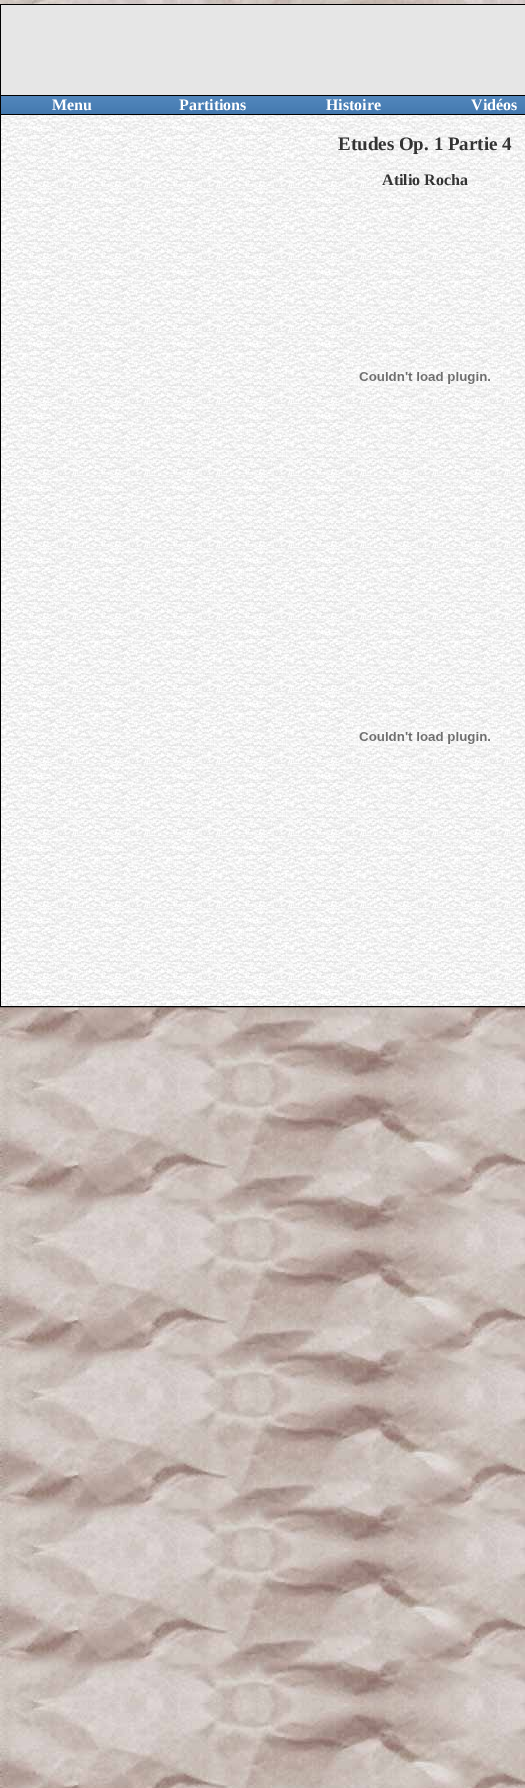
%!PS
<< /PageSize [525 1788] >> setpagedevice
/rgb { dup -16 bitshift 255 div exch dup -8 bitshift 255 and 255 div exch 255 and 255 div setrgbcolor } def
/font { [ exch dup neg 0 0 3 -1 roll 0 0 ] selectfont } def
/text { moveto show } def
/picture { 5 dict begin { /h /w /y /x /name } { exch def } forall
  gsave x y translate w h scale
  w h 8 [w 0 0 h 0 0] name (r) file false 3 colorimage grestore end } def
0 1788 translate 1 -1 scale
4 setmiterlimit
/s1 { /LiberationSerif-Bold 16 font 16#FFFFFF rgb } def
/s2 { /LiberationSerif-Bold 19 font 16#333333 rgb } def
/s3 { /LiberationSerif-Bold 16 font 16#333333 rgb } def
16#FFFFFF rgb
0 0 525 1788 rectfill
(pic1.raw) 0 0 525 1788 picture
16#000000 rgb
0.5 4.5 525 1002 rectstroke
16#E6E6E6 rgb
1 5 524 90 rectfill
16#000000 rgb
1 95 524 1 rectfill
(pic2.raw) 1 96 524 18 picture
1 114 524 1 rectfill
s1
(Menu) 52 110 text
(Partitions) 179 110 text
(Histoire) 326 110 text
(Vidéos) 471 110 text
(pic3.raw) 1 115 524 891 picture
s2
(Etudes Op. 1 Partie 4) 338 150 text
s3
(Atilio Rocha) 382 185 text
(pic4.raw) 353 368 144 18 picture
(pic4.raw) 353 728 144 18 picture
showpage
